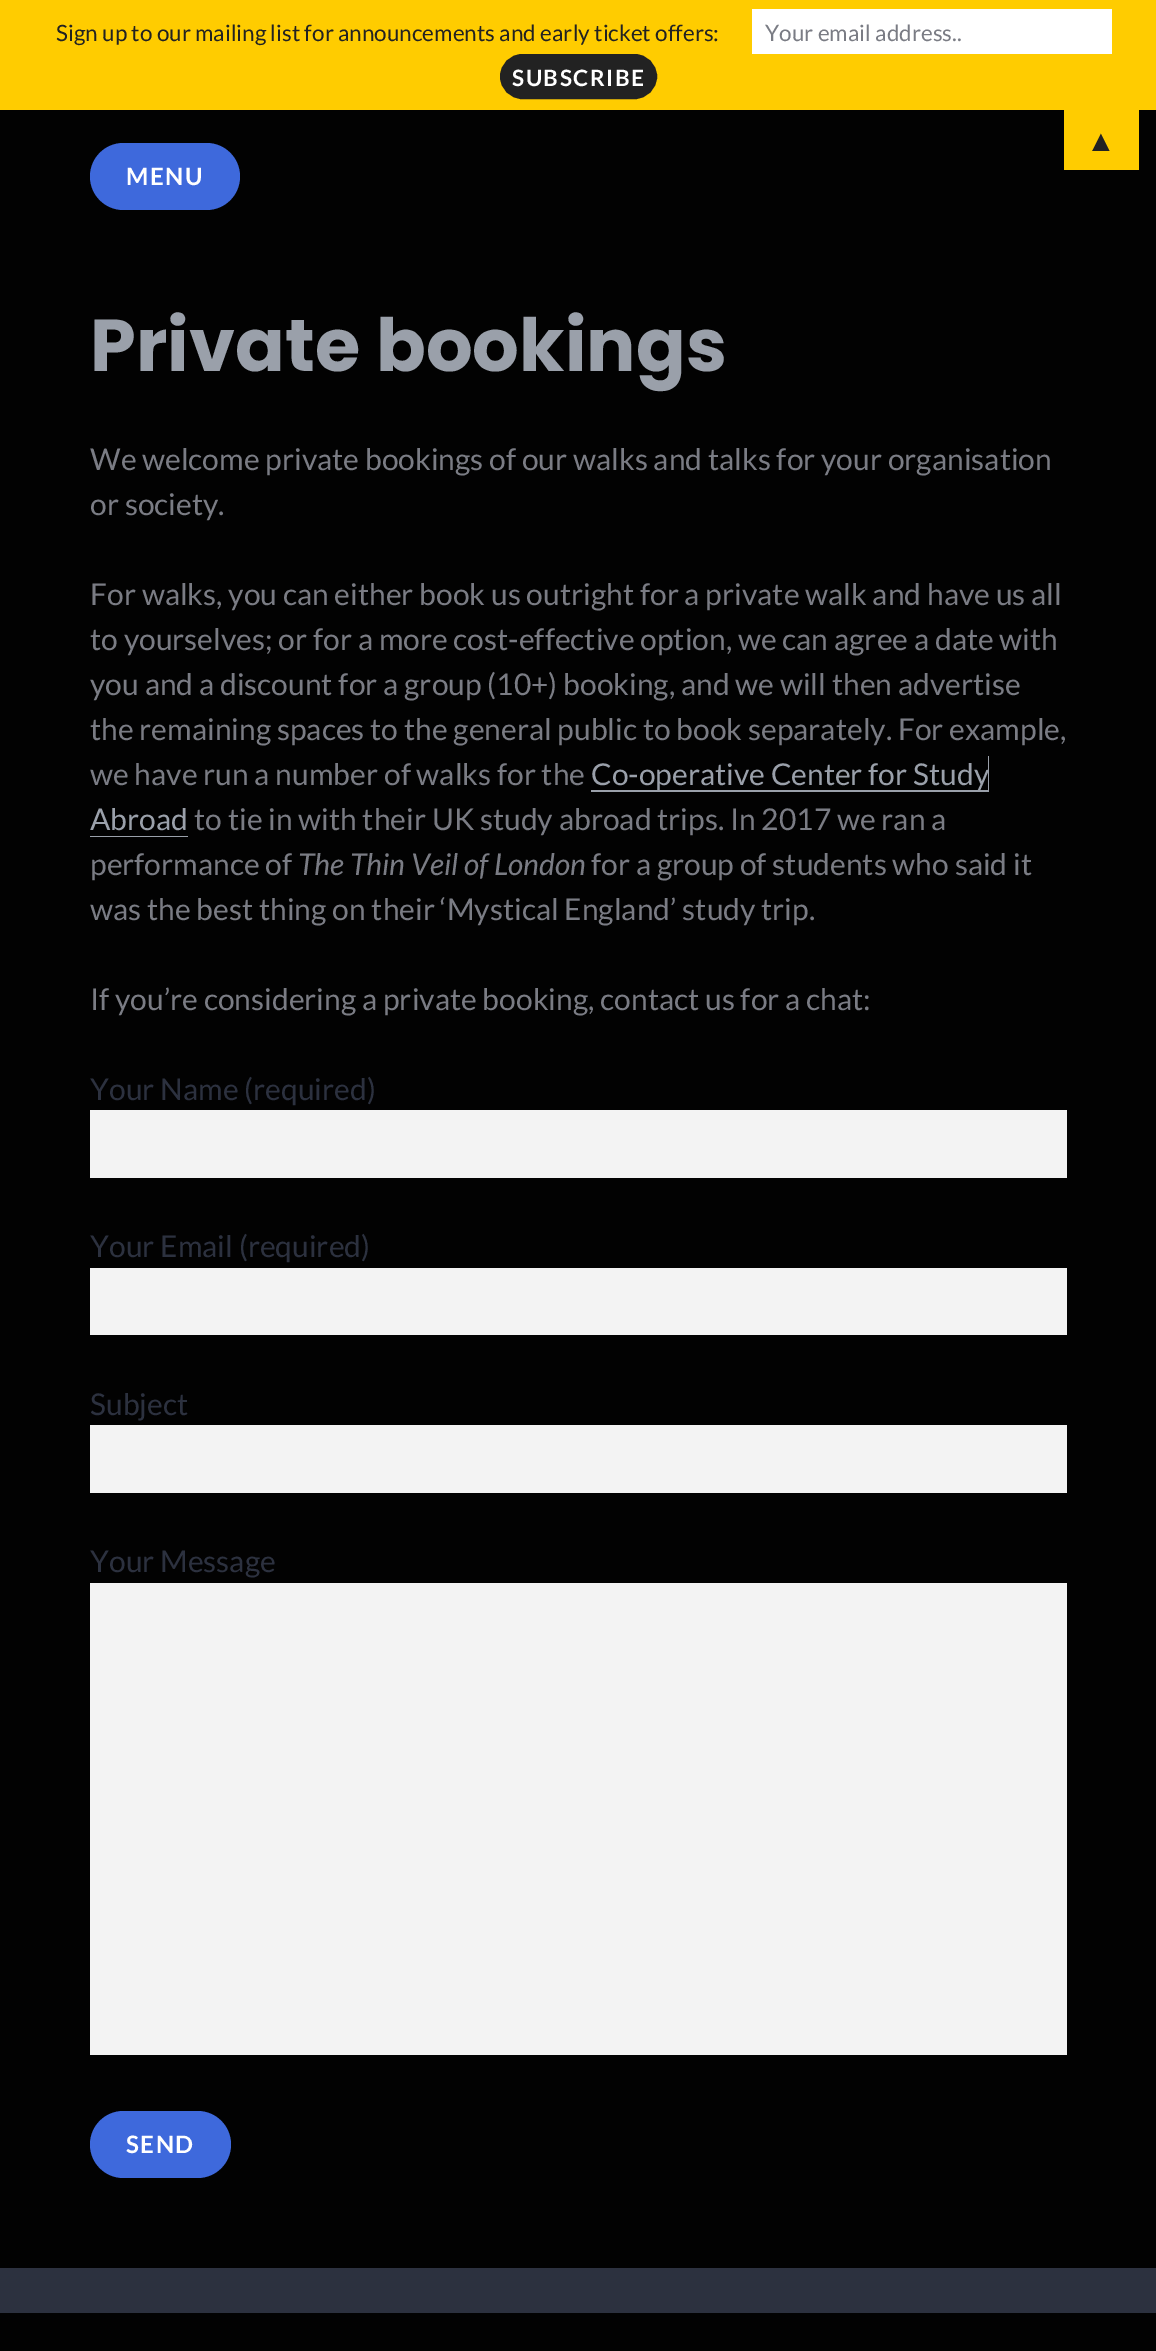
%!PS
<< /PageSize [1156 2351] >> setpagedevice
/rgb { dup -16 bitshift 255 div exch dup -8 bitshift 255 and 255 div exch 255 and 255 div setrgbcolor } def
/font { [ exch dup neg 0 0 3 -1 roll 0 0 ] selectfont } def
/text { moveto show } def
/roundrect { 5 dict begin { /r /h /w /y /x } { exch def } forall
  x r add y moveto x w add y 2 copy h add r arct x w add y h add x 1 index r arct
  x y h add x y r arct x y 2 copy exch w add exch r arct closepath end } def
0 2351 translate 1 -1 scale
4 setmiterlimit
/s1 { /Lato-Regular 22.5 font 16#222222 rgb } def
/s2 { /Lato-Regular 22.5 font 16#7A7C84 rgb } def
/s3 { /LiberationSans-Regular 30 font 16#222222 rgb } def
/s4 { /Poppins-Bold 73.5 font 16#9AA0AA rgb } def
/s5 { /Lato-Regular 30 font 16#7A7C84 rgb } def
/s6 { /Lato-Regular 30 font 16#9AA0AA rgb } def
/s7 { /Lato-Italic 30 font 16#7A7C84 rgb } def
/s8 { /Lato-Regular 30 font 16#2C313F rgb } def
16#020202 rgb
0 0 1156 2351 rectfill
16#FFCC00 rgb
0 0 1156 110 rectfill
s1
(Sign up to our mailing list for announcements and early ticket offers:) 56 41 text
16#FFFFFF rgb
752 9 360 45 rectfill
s2
(Your email address..) 765 41 text
16#222222 rgb
501 55 155 43 21.5 roundrect gsave fill grestore
2 setlinewidth
stroke
/Lato-Bold 22.5 font
16#FFFFFF rgb
512 86 moveto 1.5 0 (SUBSCRIBE) ashow
16#FFCC00 rgb
1064 110 75 60 rectfill
s3
(▲) 1086 151 text
16#3E69DC rgb
90 143 150 67 33.5 roundrect fill
/Lato-Bold 24 font
16#FFFFFF rgb
126 185 moveto 1.5 0 (MENU) ashow
s4
(Private bookings) 90 371 text
s5
(We welcome private bookings of our walks and talks for your organisation) 90 470 text
(or society.) 90 515 text
(For walks, you can either book us outright for a private walk and have us all) 90 605 text
(to yourselves; or for a more cost-effective option, we can agree a date with) 90 650 text
(you and a discount for a group \(10+\) booking, and we will then advertise) 90 695 text
(the remaining spaces to the general public to book separately. For example,) 90 740 text
(we have run a number of walks for the) 90 785 text
16#9AA0AA rgb
591 790 moveto 591 792 lineto 989 792 lineto 989 756 lineto 988 756 lineto 988 790 lineto closepath fill
(Co-operative Center for Study) 591 785 text
(Abroad) 90 830 text
90 836 moveto 90 837 lineto 188 837 lineto 188 801 lineto 188 836 lineto closepath fill
s5
(to tie in with their UK study abroad trips. In 2017 we ran a) 194 830 text
(performance of) 90 875 text
s7
(The Thin Veil of London) 298 875 text
s5
(for a group of students who said it) 591 875 text
(was the best thing on their ‘Mystical England’ study trip.) 90 920 text
(If you’re considering a private booking, contact us for a chat:) 90 1010 text
s8
(Your Name \(required\)) 90 1100 text
16#F3F3F3 rgb
90 1110 977 68 rectfill
s8
(Your Email \(required\)) 90 1257 text
16#F3F3F3 rgb
90 1268 977 67 rectfill
s8
(Subject) 90 1415 text
16#F3F3F3 rgb
90 1425 977 68 rectfill
s8
(Your Message) 90 1572 text
16#F3F3F3 rgb
90 1583 977 472 rectfill
16#3E69DC rgb
90 2111 141 67 33.5 roundrect fill
/Lato-Bold 24 font
16#FFFFFF rgb
126 2153 moveto 1.5 0 (SEND) ashow
16#2C313F rgb
0 2268 1156 45 rectfill
showpage
